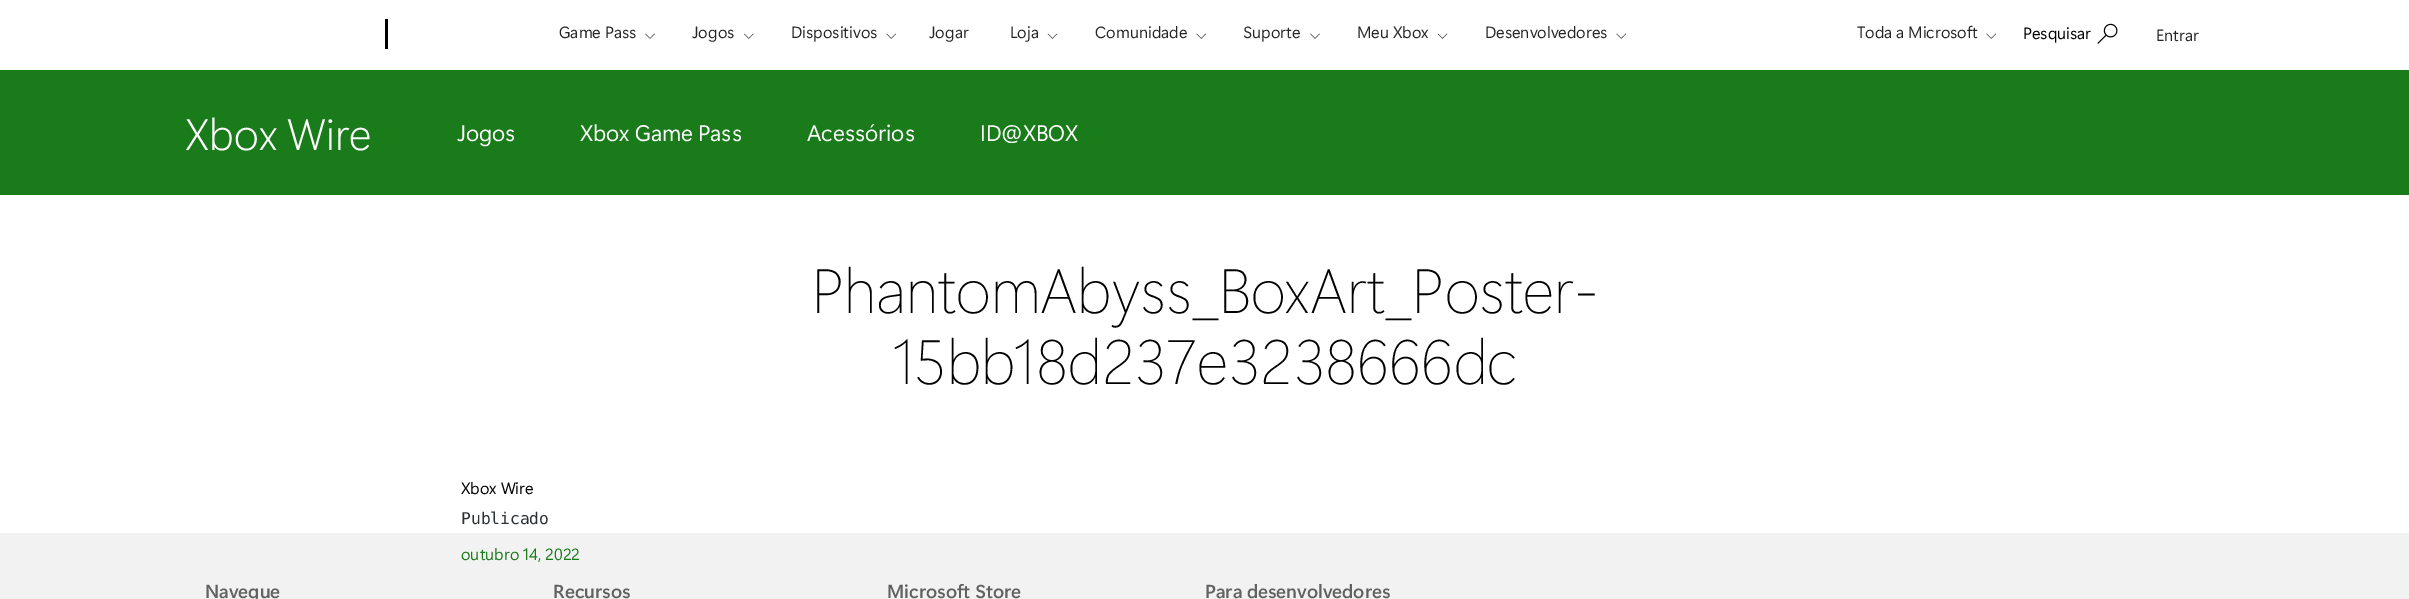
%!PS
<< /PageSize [2409 599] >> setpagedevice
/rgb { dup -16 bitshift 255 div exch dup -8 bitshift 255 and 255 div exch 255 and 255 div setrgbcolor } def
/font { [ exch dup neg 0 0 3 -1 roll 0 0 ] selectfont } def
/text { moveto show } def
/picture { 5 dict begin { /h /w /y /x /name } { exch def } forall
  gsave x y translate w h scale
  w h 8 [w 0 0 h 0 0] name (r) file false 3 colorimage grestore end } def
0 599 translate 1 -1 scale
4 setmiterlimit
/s1 { /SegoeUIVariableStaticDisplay-Regular 16.25 font 16#262626 rgb } def
/s2 { /SegoeUIVariableStaticDisplay-Regular 16.25 font 16#000000 rgb } def
/s3 { /SegoeUIVariableStaticDisplay-Light 43.75 font 16#FFFFFF rgb } def
/s4 { /SegoeUIVariableStaticDisplay-Regular 22.5 font 16#FFFFFF rgb } def
/s5 { /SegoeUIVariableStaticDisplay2-Light 62.5 font 16#000000 rgb } def
/s6 { /DejaVuSansMono-Regular 16.25 font 16#2C3136 rgb } def
/s7 { /SegoeUIVariableStaticDisplay-Regular 16.25 font 16#197B1A rgb } def
/s8 { /SegoeUIVariableStaticDisplay-SemiBold 18.75 font 16#616161 rgb } def
16#FFFFFF rgb
0 0 2409 599 rectfill
16#000000 rgb
385 19 3 30 rectfill
s1
(Game Pass) 559 38 text
(pic1.raw) 645 33 10 6 picture
(Jogos) 692 38 text
(pic2.raw) 744 33 10 6 picture
(Dispositivos) 791 38 text
(pic3.raw) 886 33 10 6 picture
(Jogar) 929 38 text
(Loja) 1010 38 text
(pic4.raw) 1047 33 11 6 picture
(Comunidade) 1095 38 text
(pic3.raw) 1196 33 10 6 picture
(Suporte) 1243 38 text
(pic1.raw) 1310 33 10 6 picture
(Meu Xbox) 1357 38 text
(pic4.raw) 1437 33 11 6 picture
(Desenvolvedores) 1485 38 text
(pic3.raw) 1616 33 10 6 picture
(Toda a Microsoft) 1857 38 text
(pic3.raw) 1986 33 10 6 picture
s2
(Pesquisar) 2023 39 text
(pic5.raw) 2097 23 21 21 picture
s1
(Entrar) 2156 41 text
16#197B1A rgb
0 70 2409 125 rectfill
s3
(Xbox Wire) 185 150 text
s4
(Jogos) 457 141 text
(Xbox Game Pass) 580 141 text
(Acessórios) 807 141 text
(ID@XBOX) 980 141 text
s5
(PhantomAbyss_BoxArt_Poster-) 812 313 text
(15bb18d237e3238666dc) 893 384 text
s2
(Xbox Wire) 461 494 text
s6
(Publicado) 461 524 text
16#F2F2F2 rgb
0 533 2409 66 rectfill
s7
(outubro 14, 2022) 461 560 text
s8
(Navegue) 205 598 text
(Recursos) 553 598 text
(Microsoft Store) 887 598 text
(Para desenvolvedores) 1205 598 text
showpage
